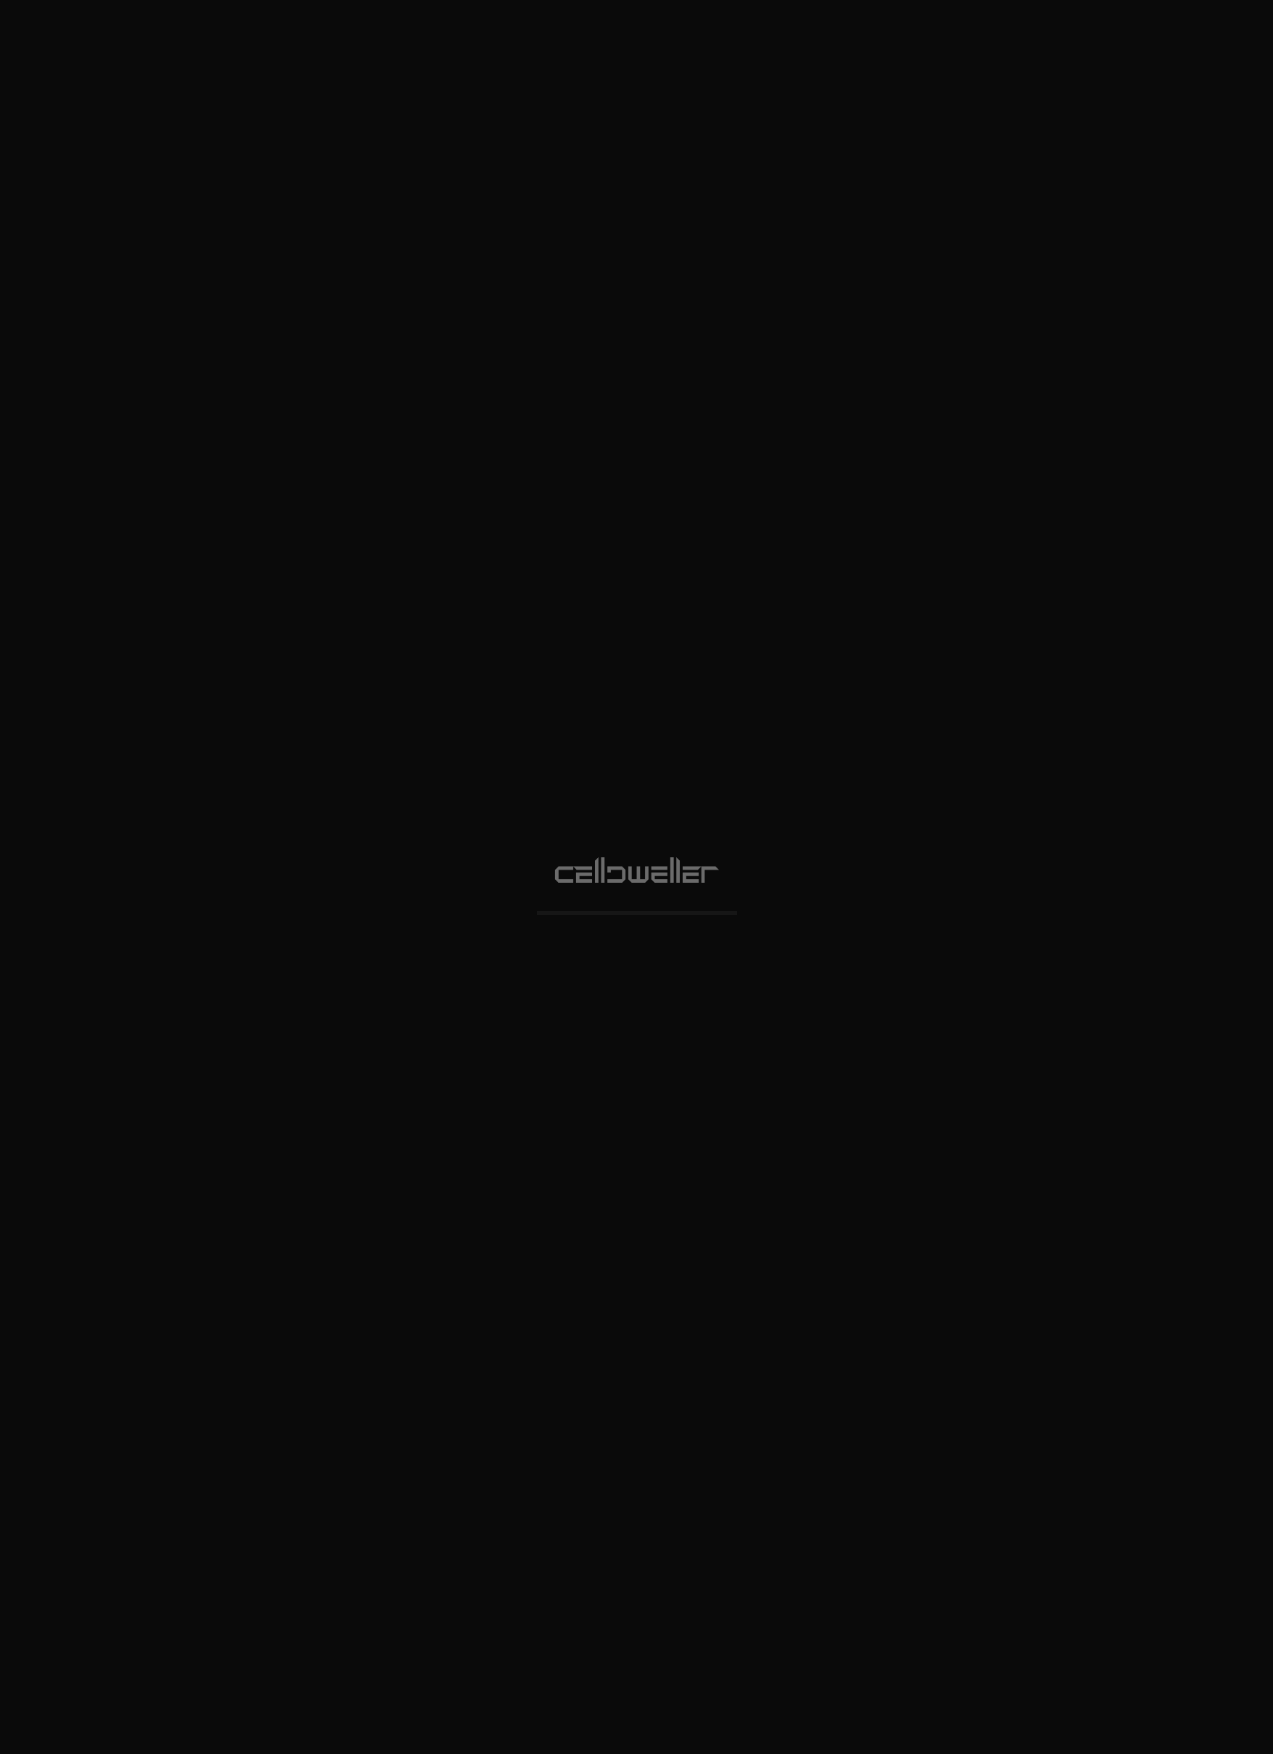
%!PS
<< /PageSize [1273 1754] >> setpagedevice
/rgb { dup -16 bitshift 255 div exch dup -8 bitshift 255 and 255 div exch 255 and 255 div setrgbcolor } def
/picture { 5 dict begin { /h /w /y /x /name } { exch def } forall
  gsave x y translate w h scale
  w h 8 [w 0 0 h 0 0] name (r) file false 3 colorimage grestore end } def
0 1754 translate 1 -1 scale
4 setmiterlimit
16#0A0A0A rgb
0 0 1273 1754 rectfill
(pic1.raw) 554 857 165 26 picture
16#161616 rgb
537 911 200 4 rectfill
showpage
